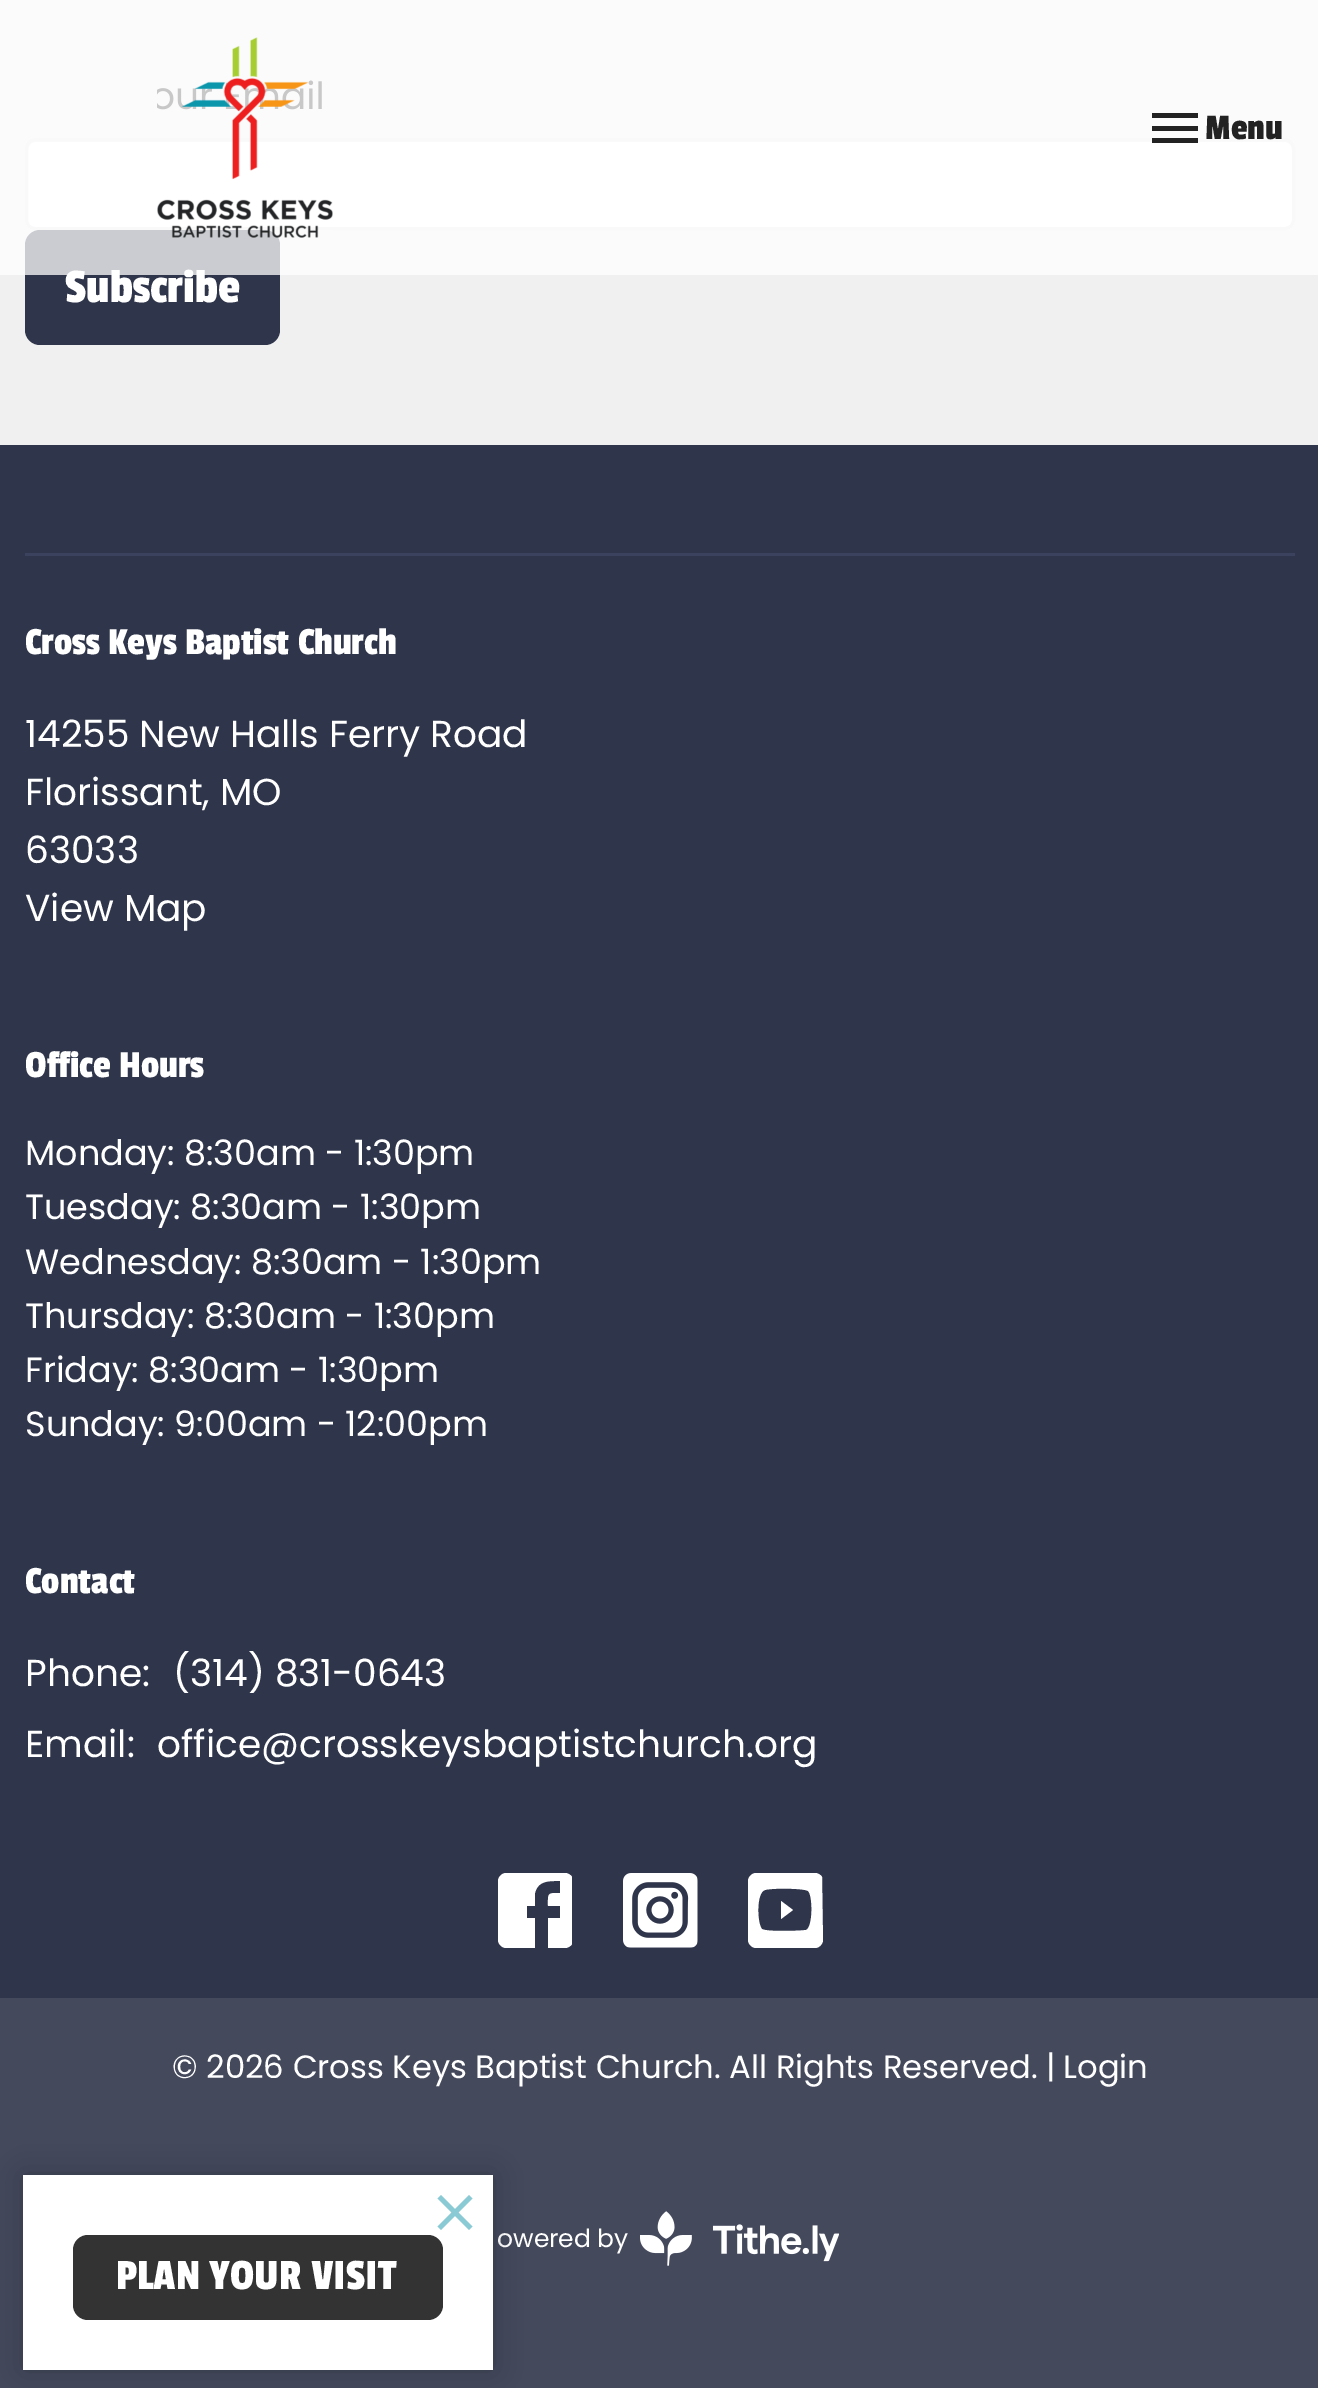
%!PS
<< /PageSize [1318 2388] /PageUsesTransparency true >> setpagedevice
/rgb { dup -16 bitshift 255 div exch dup -8 bitshift 255 and 255 div exch 255 and 255 div setrgbcolor } def
/font { [ exch dup neg 0 0 3 -1 roll 0 0 ] selectfont } def
/text { moveto show } def
/alpha { dup .setfillconstantalpha .setstrokeconstantalpha } def
/roundrect { 5 dict begin { /r /h /w /y /x } { exch def } forall
  x r add y moveto x w add y 2 copy h add r arct x w add y h add x 1 index r arct
  x y h add x y r arct x y 2 copy exch w add exch r arct closepath end } def
/shadow { 12 dict begin { /a /b /q /h /w /y /x } { exch def } forall gsave /was 0 def
  9 -2 -9 { dup b mul 4 div /e exch def 1 sub .425 mul 2.718 exch exp 1 add a .99 .min exch div /now exch def
    1 1 now sub 1 was sub div sub alpha /was now def
    w h .min e 2 mul add 0 gt { x e sub y e sub w e 2 mul add h e 2 mul add
      q e add b .6 mul add w h .min 2 div e add .min 0 .max roundrect fill } if } for grestore end } def
/picture { 5 dict begin { /h /w /y /x /name } { exch def } forall
  gsave x y translate w h scale
  w h 8 [w 0 0 h 0 0] name (r) file false 3 colorimage grestore end } def
0 .pushpdf14devicefilter
0 2388 translate 1 -1 scale
4 setmiterlimit
/s1 { /PassionOne-Regular 50 font 16#FFFFFF rgb } def
/s2 { /PassionOne-Regular 37.5 font 16#222222 rgb } def
/s3 { /PassionOne-Regular 40 font 16#FFFFFF rgb } def
/s4 { /Poppins-Regular 37.5 font 16#FFFFFF rgb } def
/s5 { /Poppins-Regular 35 font 16#FFFFFF rgb } def
/s6 { /Poppins-Regular 32.25 font 16#FFFFFF rgb } def
/s7 { /Poppins-Regular 25 font 16#FFFFFF rgb } def
/s8 { /PassionOne-Regular 45 font 16#FFFFFF rgb } def
16#F0F0F0 rgb
0 0 1318 2388 rectfill
16#FFFFFF rgb
25 138 1270 92 10 roundrect fill
16#ECECEC rgb
35 142 moveto 1285 142 lineto 1289 142 1292 146 1292 150 curveto 1292 224 lineto 1293 223 1293 222 1293 220 curveto 1293 148 lineto 1293 144 1289 140 1285 140 curveto 36 140 lineto 32 140 28 144 28 148 curveto 28 150 lineto 28 146 31 142 35 142 curveto closepath fill
16#E6E6E6 rgb
3 setlinewidth
26.5 139.5 1267 89 8.5 roundrect stroke
16#2F354A rgb
25 230 255 115 15 roundrect fill
s1
(Subscribe) 65 302 text
0.75 alpha
0 0 1318 275 rectfill
1 alpha
(pic1.raw) 157 37 176 201 picture
16#222222 rgb
1152 143 moveto 1198 143 lineto 1198 138 lineto 1152 138 lineto closepath 1152 131 moveto 1198 131 lineto 1198 126 lineto 1152 126 lineto closepath 1152 113 moveto 1152 118 lineto 1198 118 lineto 1198 113 lineto closepath fill
s2
(Menu) 1205 139 text
16#2F354A rgb
0 445 1318 1553 rectfill
16#3B425D rgb
25 553 1270 3 rectfill
s3
(Cross Keys Baptist Church) 25 654 text
s4
(14255 New Halls Ferry Road) 25 747 text
(Florissant, MO) 25 805 text
(63033) 25 863 text
(View Map) 25 921 text
s3
(Office Hours) 25 1077 text
s5
(Monday: 8:30am - 1:30pm) 25 1165 text
(Tuesday: 8:30am - 1:30pm) 25 1219 text
(Wednesday: 8:30am - 1:30pm) 25 1274 text
(Thursday: 8:30am - 1:30pm) 25 1328 text
(Friday: 8:30am - 1:30pm) 25 1382 text
(Sunday: 9:00am - 12:00pm) 25 1436 text
s3
(Contact) 25 1593 text
s4
(Phone:) 25 1686 text
(\(314\) 831-0643) 173 1686 text
(Email:) 25 1757 text
(office@crosskeysbaptistchurch.org) 157 1757 text
560 1881 moveto 560 1893 lineto 547 1893 548 1893 548 1906 curveto 560 1906 lineto 560 1918 lineto 548 1918 lineto 548 1948 lineto 565 1948 lineto 568 1948 571 1946 572 1944 curveto 572 1877 lineto 571 1875 568 1873 565 1873 curveto 506 1873 lineto 502 1873 498 1877 498 1881 curveto 498 1940 lineto 498 1944 502 1948 506 1948 curveto 535 1948 lineto 535 1918 lineto 527 1918 lineto 527 1906 lineto 535 1906 lineto 535 1893 lineto 538 1880 550 1881 560 1881 curveto closepath fill
(pic2.raw) 623 1873 75 75 picture
781 1901 moveto 793 1910 lineto 781 1919 lineto closepath fill
756 1873 moveto 752 1873 748 1877 748 1881 curveto 748 1940 lineto 748 1944 752 1948 756 1948 curveto 815 1948 lineto 819 1948 822 1945 823 1941 curveto 822 1877 lineto 821 1875 818 1873 815 1873 curveto closepath 806 1930 moveto 813 1928 813 1895 808 1891 curveto 804 1888 770 1888 765 1890 curveto 756 1892 757 1924 762 1929 curveto 766 1932 800 1931 806 1930 curveto closepath eofill
16#44495C rgb
0 1998 1318 390 rectfill
s6
(© 2026 Cross Keys Baptist Church. All Rights Reserved. |) 172 2078 text
(Login) 1063 2078 text
s7
(owered by) 497 2247 text
(pic3.raw) 640 2211 199 55 picture
16#000000 rgb
23 2175 470 195 0 14 0.2 shadow
16#FFFFFF rgb
23 2175 470 195 rectfill
16#89CAD5 rgb
472.5 2198.5 moveto 469 2195 lineto 455 2209 lineto 441 2195 lineto 437.5 2198.5 lineto 451.5 2212.5 lineto 437.5 2226.5 lineto 441 2230 lineto 455 2216 lineto 469 2230 lineto 472.5 2226.5 lineto 458.5 2212.5 lineto closepath fill
16#333333 rgb
73 2235 370 85 15 roundrect fill
s8
(PLAN YOUR VISIT) 116 2289 text
.poppdf14devicefilter showpage
